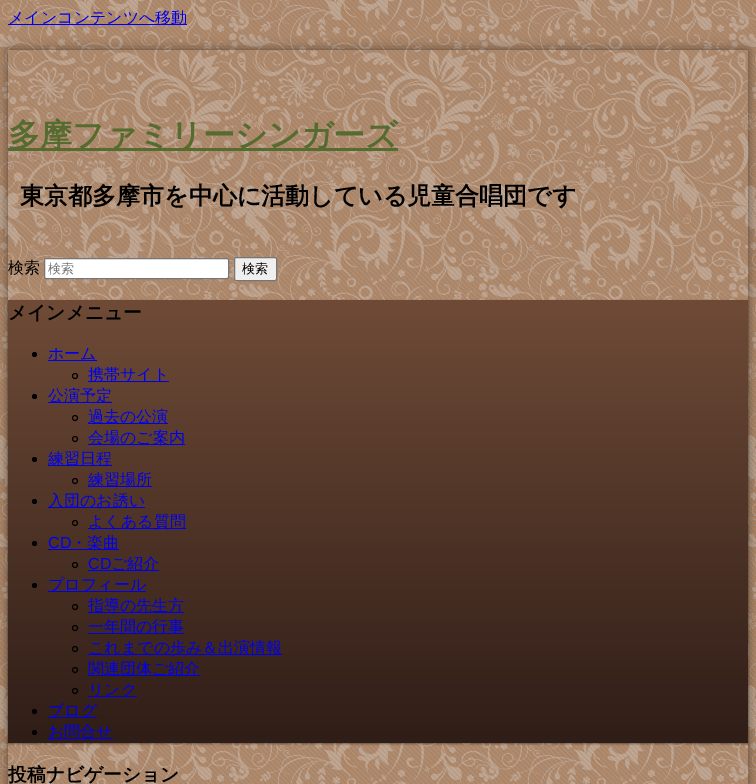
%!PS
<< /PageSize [756 784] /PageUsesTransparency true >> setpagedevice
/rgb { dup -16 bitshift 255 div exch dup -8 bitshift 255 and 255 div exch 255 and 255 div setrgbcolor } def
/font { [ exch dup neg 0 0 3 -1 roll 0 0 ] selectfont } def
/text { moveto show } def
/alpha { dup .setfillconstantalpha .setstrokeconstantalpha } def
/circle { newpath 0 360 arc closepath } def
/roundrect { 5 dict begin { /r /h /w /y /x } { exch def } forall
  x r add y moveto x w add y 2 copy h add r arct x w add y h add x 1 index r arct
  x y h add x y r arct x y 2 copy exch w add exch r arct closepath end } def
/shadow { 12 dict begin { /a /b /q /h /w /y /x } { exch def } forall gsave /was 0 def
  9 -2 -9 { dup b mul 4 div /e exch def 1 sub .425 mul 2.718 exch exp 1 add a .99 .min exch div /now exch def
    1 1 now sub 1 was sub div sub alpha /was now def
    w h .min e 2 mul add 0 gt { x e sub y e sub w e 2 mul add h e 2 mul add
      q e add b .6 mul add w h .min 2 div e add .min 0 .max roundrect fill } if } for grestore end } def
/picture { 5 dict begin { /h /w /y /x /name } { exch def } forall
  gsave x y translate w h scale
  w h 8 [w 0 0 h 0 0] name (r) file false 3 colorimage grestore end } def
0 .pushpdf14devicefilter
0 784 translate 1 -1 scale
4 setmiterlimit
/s1 { /WenQuanYiZenHei-Medium 16 font 16#0000EE rgb } def
/s2 { /WenQuanYiZenHei-Bold 32 font 16#556B2F rgb } def
/s3 { /WenQuanYiZenHei-Bold 24 font 16#000000 rgb } def
/s4 { /WenQuanYiZenHei-Medium 16 font 16#000000 rgb } def
/s5 { /WenQuanYiZenHei-Medium 13 font 16#757575 rgb } def
/s6 { /WenQuanYiZenHei-Medium 13 font 16#000000 rgb } def
/s7 { /WenQuanYiZenHei-Bold 18.75 font 16#000000 rgb } def
/s8 { /LiberationSans-Regular 16 font 16#0000EE rgb } def
16#AF8462 rgb
0 0 756 784 rectfill
(pic1.raw) 0 0 756 784 picture
16#0000EE rgb
8 24 179 1 rectfill
s1
(メインコンテンツへ移動) 8 23 text
gsave
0 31 moveto 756 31 lineto 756 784 lineto 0 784 lineto closepath 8 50 moveto 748 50 lineto 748 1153 lineto 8 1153 lineto closepath eoclip newpath
16#000000 rgb
8 50 740 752 0 6 0.5 shadow
grestore
16#556B2F rgb
8 148 390 3 rectfill
s2
(多摩ファミリーシンガーズ) 8 146 text
s3
(東京都多摩市を中心に活動している児童合唱団です) 20 204 text
s4
(検索) 8 273 text
16#FFFFFF rgb
44.5 258.5 184 20 1.5 roundrect gsave fill grestore
16#767676 rgb
stroke
s5
(検索) 48 273 text
16#EFEFEF rgb
234.5 257.5 42 23 1.5 roundrect gsave fill grestore
16#767676 rgb
stroke
s6
(検索) 242 273 text
8 301 740 443 0 1 0.4 shadow
gsave 8 300 moveto 748 300 lineto 748 743 lineto 8 743 lineto closepath clip newpath
<< /ShadingType 2 /ColorSpace /DeviceRGB /Coords [378 300 378 743] /Extend [true true] /Function << /FunctionType 2 /Domain [0 1] /C0 [0.435 0.294 0.216] /C1 [0.184 0.114 0.09] /N 1 >> >> shfill grestore
s7
(メインメニュー) 8 319 text
34.5 354.5 2.5 circle fill
16#0000EE rgb
48 360 49 1 rectfill
s1
(ホーム) 48 359 text
16#000000 rgb
75 376 2.5 circle stroke
16#0000EE rgb
88 381 81 1 rectfill
(携帯サイト) 88 380 text
16#000000 rgb
34.5 396.5 2.5 circle fill
16#0000EE rgb
48 402 64 1 rectfill
(公演予定) 48 401 text
16#000000 rgb
75 418 2.5 circle stroke
16#0000EE rgb
88 423 80 1 rectfill
(過去の公演) 88 422 text
16#000000 rgb
75 439 2.5 circle stroke
16#0000EE rgb
88 444 97 1 rectfill
(会場のご案内) 88 443 text
16#000000 rgb
34.5 459.5 2.5 circle fill
16#0000EE rgb
48 465 64 1 rectfill
(練習日程) 48 464 text
16#000000 rgb
75 481 2.5 circle stroke
16#0000EE rgb
88 486 64 1 rectfill
(練習場所) 88 485 text
16#000000 rgb
34.5 501.5 2.5 circle fill
16#0000EE rgb
48 507 97 1 rectfill
(入団のお誘い) 48 506 text
16#000000 rgb
75 523 2.5 circle stroke
16#0000EE rgb
88 528 98 1 rectfill
(よくある質問) 88 527 text
16#000000 rgb
34.5 543.5 2.5 circle fill
s8
(CD) 48 548 text
48 549 71 1 rectfill
s1
(・楽曲) 71 548 text
16#000000 rgb
75 565 2.5 circle stroke
s8
(CD) 88 569 text
88 570 71 1 rectfill
s1
(ご紹介) 111 569 text
16#000000 rgb
34.5 585.5 2.5 circle fill
16#0000EE rgb
48 591 98 1 rectfill
(プロフィール) 48 590 text
16#000000 rgb
75 607 2.5 circle stroke
16#0000EE rgb
88 612 96 1 rectfill
(指導の先生方) 88 611 text
16#000000 rgb
75 628 2.5 circle stroke
16#0000EE rgb
88 633 96 1 rectfill
(一年間の行事) 88 632 text
16#000000 rgb
75 649 2.5 circle stroke
16#0000EE rgb
88 654 194 1 rectfill
(これまでの歩み＆出演情報) 88 653 text
16#000000 rgb
75 670 2.5 circle stroke
16#0000EE rgb
88 675 112 1 rectfill
(関連団体ご紹介) 88 674 text
16#000000 rgb
75 691 2.5 circle stroke
16#0000EE rgb
88 696 49 1 rectfill
(リンク) 88 695 text
16#000000 rgb
34.5 711.5 2.5 circle fill
16#0000EE rgb
48 717 49 1 rectfill
(ブログ) 48 716 text
16#000000 rgb
34.5 732.5 2.5 circle fill
16#0000EE rgb
48 738 65 1 rectfill
(お問合せ) 48 737 text
s7
(投稿ナビゲーション) 8 781 text
.poppdf14devicefilter showpage
